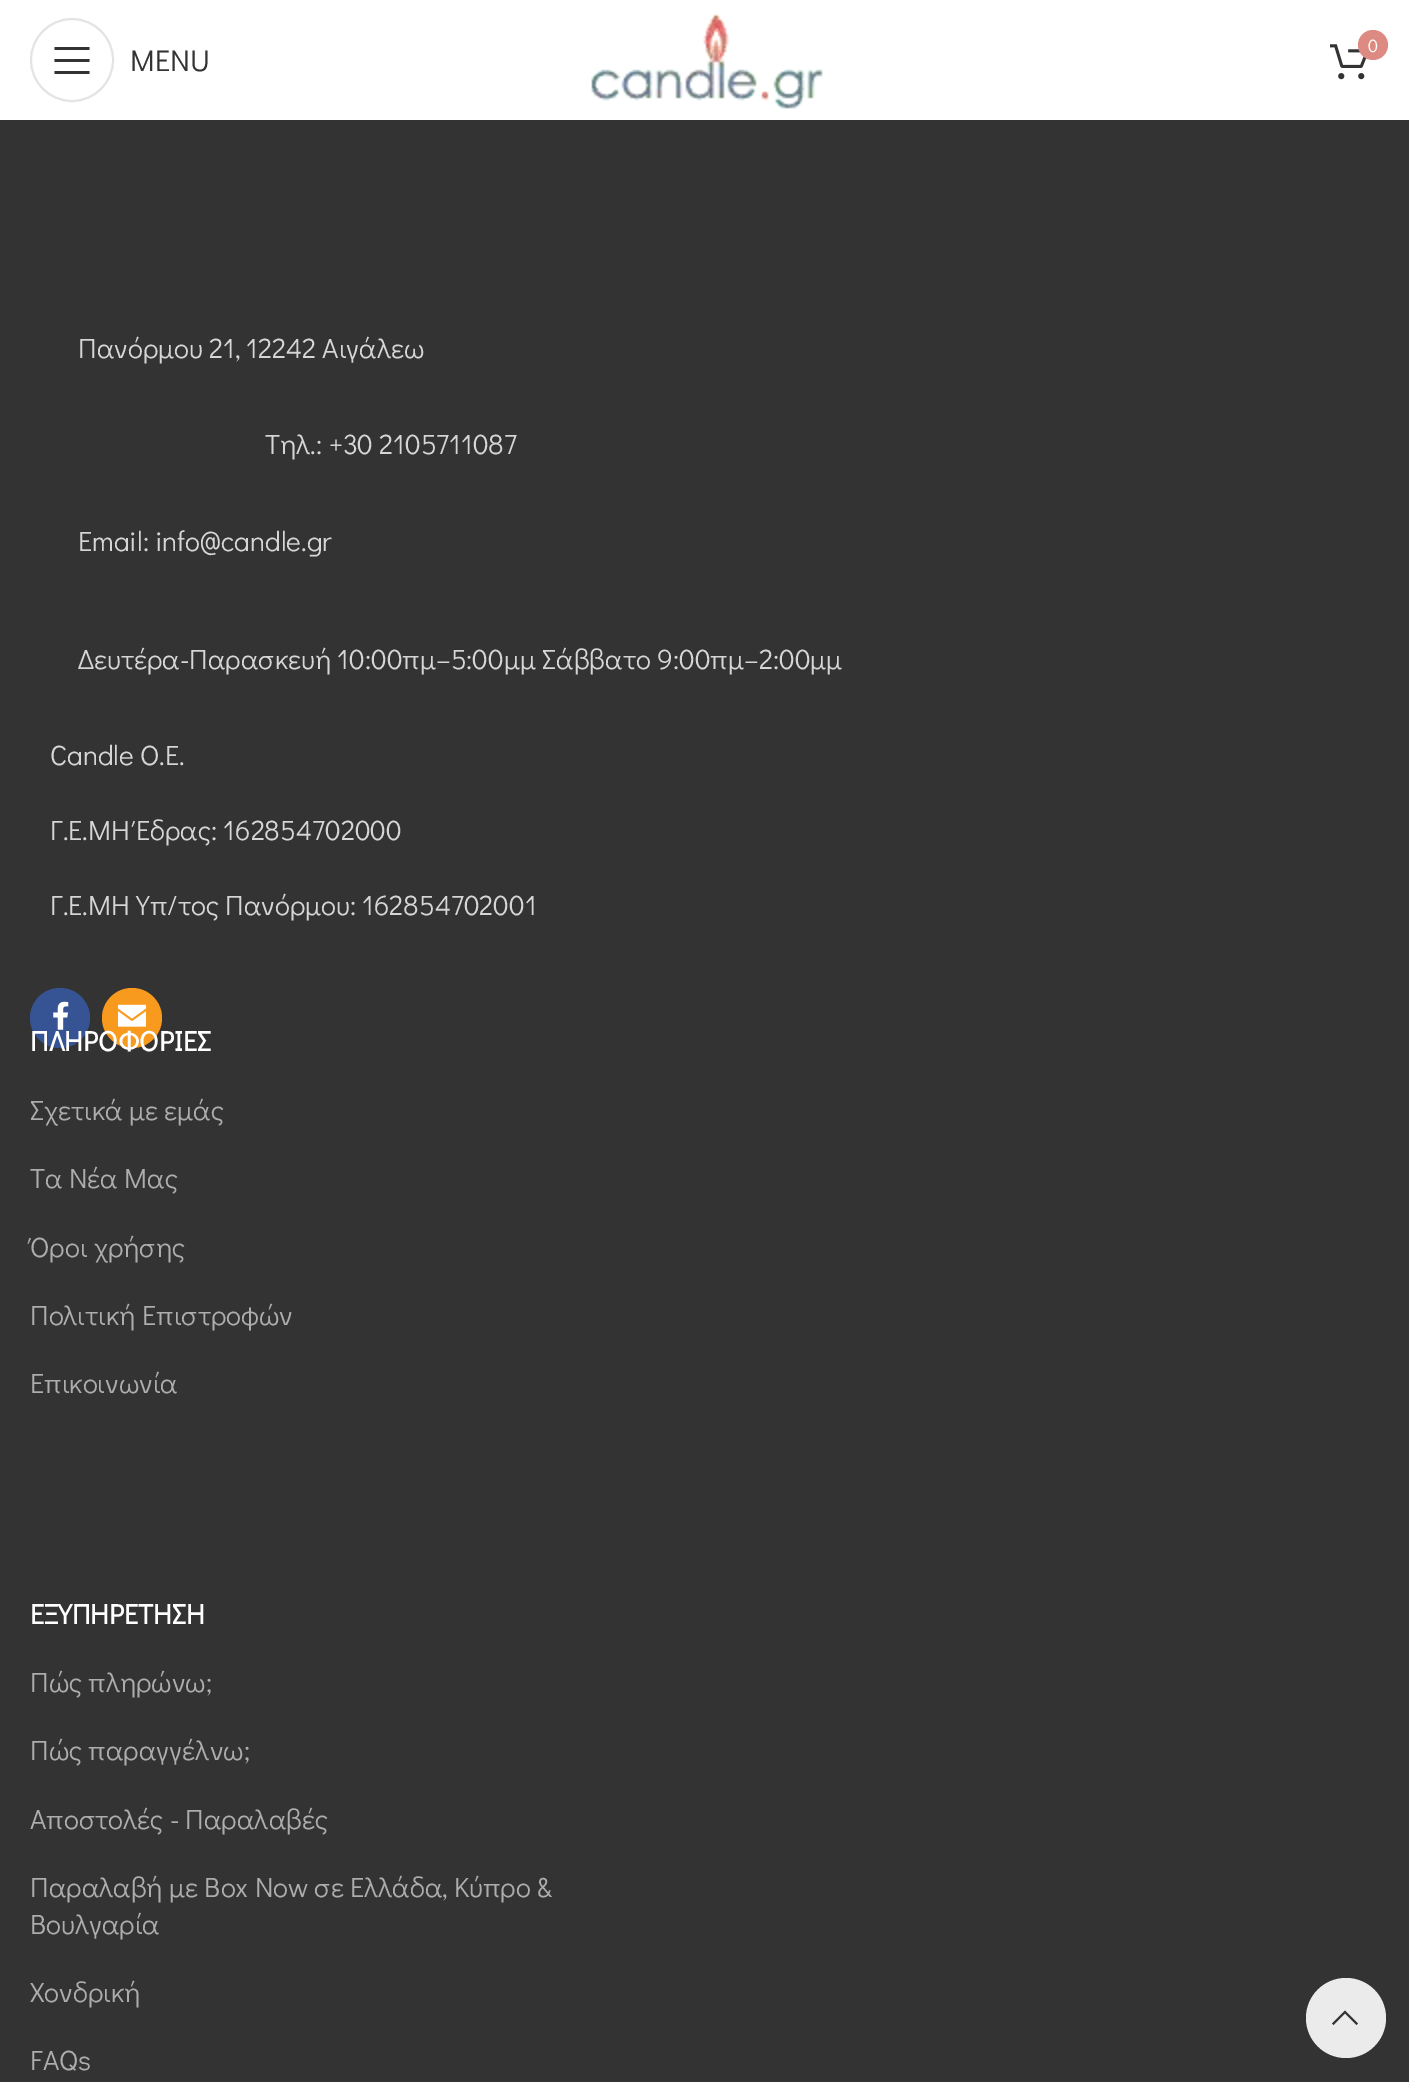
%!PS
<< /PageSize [1409 2082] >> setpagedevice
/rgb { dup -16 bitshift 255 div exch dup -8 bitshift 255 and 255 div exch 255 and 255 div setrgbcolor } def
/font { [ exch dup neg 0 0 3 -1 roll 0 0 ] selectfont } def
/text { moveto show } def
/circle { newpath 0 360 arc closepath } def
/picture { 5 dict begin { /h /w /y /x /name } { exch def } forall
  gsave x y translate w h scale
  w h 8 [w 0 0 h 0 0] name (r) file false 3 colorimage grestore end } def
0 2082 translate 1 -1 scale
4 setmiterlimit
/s1 { /DidactGothic-Regular 18 font 16#FFFFFF rgb } def
/s2 { /DidactGothic-Regular 30 font 16#333333 rgb } def
/s3 { /DidactGothic-Regular 28 font 16#D6D6D6 rgb } def
/s4 { /DidactGothic-Bold 28 font 16#FFFFFF rgb } def
/s5 { /DidactGothic-Regular 28 font 16#ADADAD rgb } def
16#333333 rgb
0 0 1409 2082 rectfill
16#FFFFFF rgb
0 0 1409 120 rectfill
(pic1.raw) 591 13 233 96 picture
(pic2.raw) 1330 44 37 36 picture
16#DD8B82 rgb
1373 45 15 circle fill
s1
(0) 1368 52 text
16#E4E4E4 rgb
2 setlinewidth
72 60 41 circle stroke
16#333333 rgb
54.5 50 moveto 89.5 50 lineto 89.5 47 lineto 54.5 47 lineto closepath 54.5 62 moveto 89.5 62 lineto 89.5 59 lineto 54.5 59 lineto closepath 54.5 74 moveto 89.5 74 lineto 89.5 71 lineto 54.5 71 lineto closepath fill
s2
(MENU) 130 71 text
s3
(Πανόρμου 21, 12242 Αιγάλεω) 78 358 text
(Τηλ.: +30 2105711087) 265 454 text
(Email: info@candle.gr) 78 551 text
(Δευτέρα-Παρασκευή 10:00πμ–5:00μμ Σάββατο 9:00πμ–2:00μμ) 78 669 text
(Candle Ο.Ε.) 50 765 text
(Γ.Ε.ΜΗ Έδρας: 162854702000) 50 840 text
(Γ.Ε.ΜΗ Υπ/τος Πανόρμου: 162854702001) 50 915 text
16#365493 rgb
60 1018 30 circle fill
(pic3.raw) 53 1001 16 29 picture
16#F89A1E rgb
132 1018 30 circle fill
(pic4.raw) 118 1004 28 23 picture
s4
(ΠΛΗΡΟΦΟΡΙΕΣ) 30 1051 text
s5
(Σχετικά με εμάς) 30 1120 text
(Τα Νέα Μας) 30 1188 text
(Όροι χρήσης) 30 1257 text
(Πολιτική Επιστροφών) 30 1325 text
(Επικοινωνία) 30 1393 text
s4
(ΕΞΥΠΗΡΕΤΗΣΗ) 30 1624 text
s5
(Πώς πληρώνω;) 30 1692 text
(Πώς παραγγέλνω;) 30 1760 text
(Αποστολές - Παραλαβές) 30 1829 text
(Παραλαβή με Box Now σε Ελλάδα, Κύπρο &) 30 1897 text
(Βουλγαρία) 30 1934 text
(Χονδρική) 30 2002 text
(FAQs) 30 2070 text
16#EBEBEB rgb
1346 2018 40 circle fill
16#333333 rgb
1356.5 2025 moveto 1358 2023.5 lineto 1345 2010.5 lineto 1332 2023.5 lineto 1333.5 2025 lineto 1345 2013.5 lineto closepath fill
showpage
